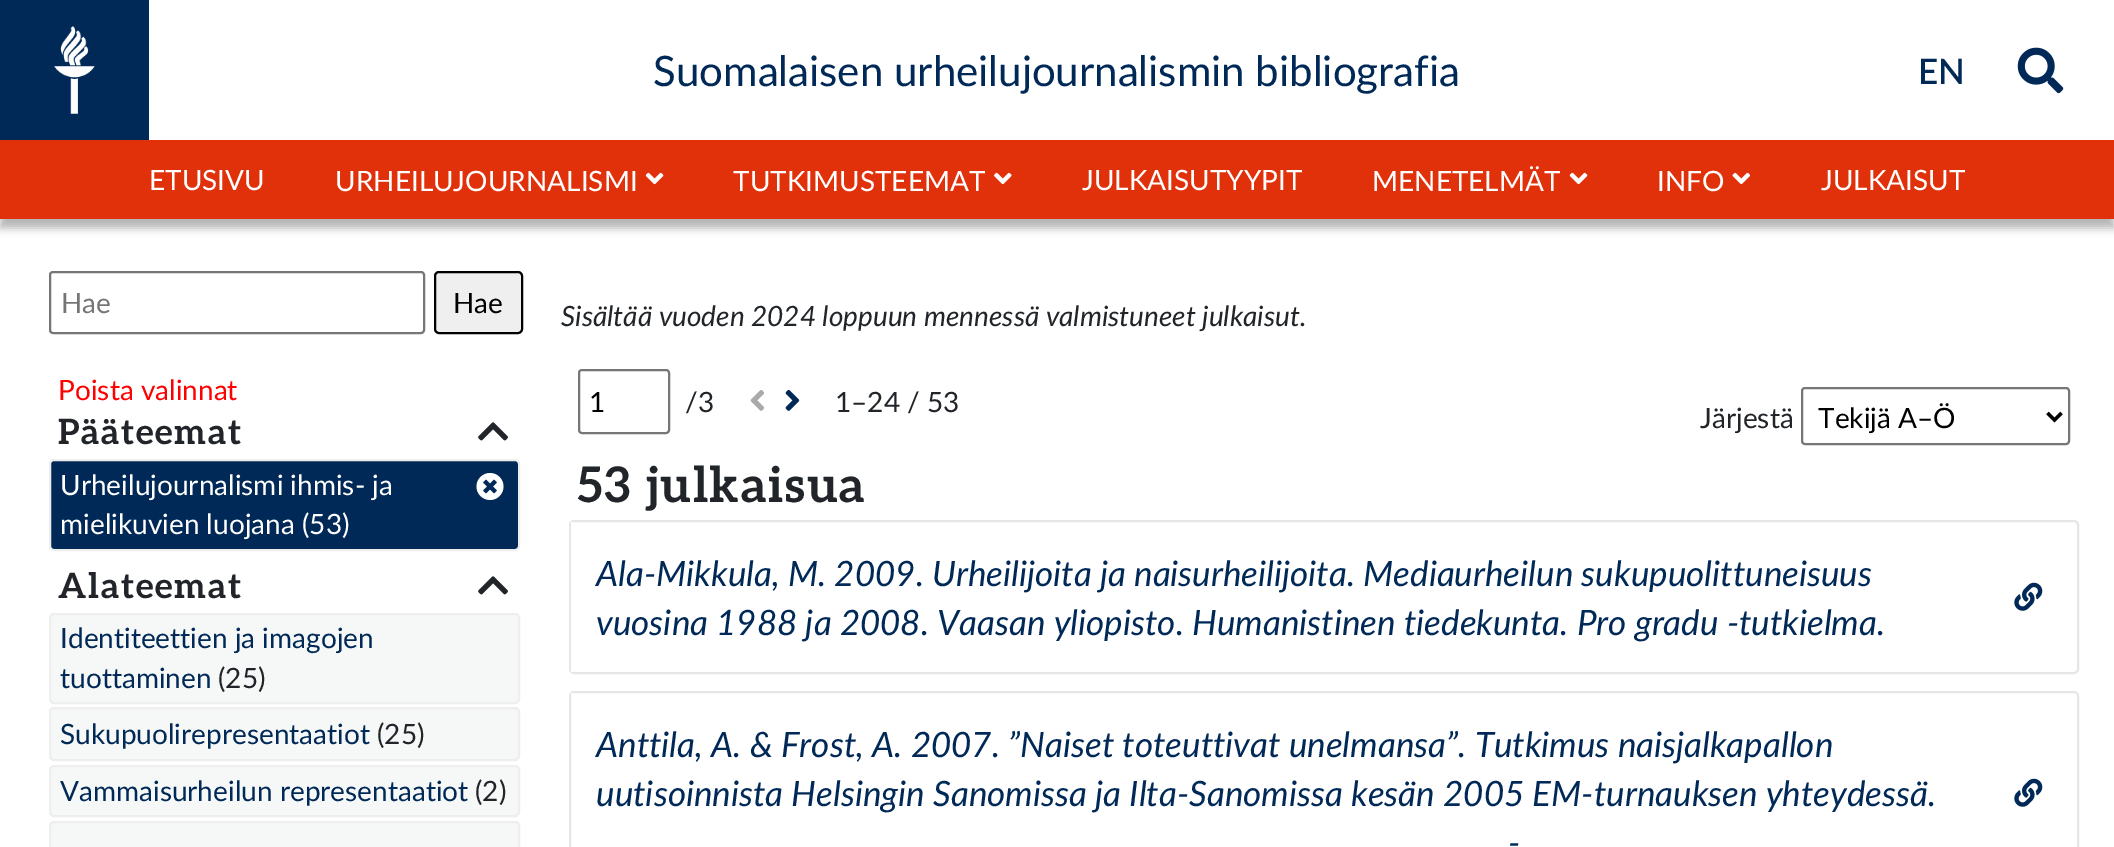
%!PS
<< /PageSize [2114 847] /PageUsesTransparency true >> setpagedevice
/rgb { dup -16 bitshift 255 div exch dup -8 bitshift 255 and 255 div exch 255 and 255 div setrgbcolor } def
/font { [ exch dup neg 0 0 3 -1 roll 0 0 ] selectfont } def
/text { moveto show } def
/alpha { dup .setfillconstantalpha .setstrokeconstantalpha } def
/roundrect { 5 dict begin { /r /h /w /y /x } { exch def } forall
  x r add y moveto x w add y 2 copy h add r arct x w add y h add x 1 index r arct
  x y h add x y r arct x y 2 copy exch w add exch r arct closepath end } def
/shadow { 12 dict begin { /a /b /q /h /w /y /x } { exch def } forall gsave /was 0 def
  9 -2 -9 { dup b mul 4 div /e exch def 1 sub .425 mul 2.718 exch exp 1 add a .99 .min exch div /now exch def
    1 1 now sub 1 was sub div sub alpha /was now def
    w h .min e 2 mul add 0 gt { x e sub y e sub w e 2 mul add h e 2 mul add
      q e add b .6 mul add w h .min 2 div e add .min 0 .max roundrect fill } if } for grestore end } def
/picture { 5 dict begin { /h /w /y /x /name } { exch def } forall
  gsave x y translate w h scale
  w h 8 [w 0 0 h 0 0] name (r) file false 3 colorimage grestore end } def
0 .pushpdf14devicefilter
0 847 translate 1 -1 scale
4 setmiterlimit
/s1 { /Lato-Regular 42 font 16#002957 rgb } def
/s2 { /Lato-SemiBold 35 font 16#002957 rgb } def
/s3 { /Lato-Regular 28 font 16#FFFFFF rgb } def
/s4 { /Lato-Regular 28 font 16#757575 rgb } def
/s5 { /Lato-Regular 28 font 16#000000 rgb } def
/s6 { /Lato-Italic 28 font 16#212529 rgb } def
/s7 { /Lato-Regular 28 font 16#FF0000 rgb } def
/s8 { /Lato-Regular 28 font 16#002957 rgb } def
/s9 { /Lato-Regular 28 font 16#212529 rgb } def
/s10 { /Lato-Italic 35 font 16#002957 rgb } def
16#FFFFFF rgb
0 0 2114 847 rectfill
16#000000 rgb
0 9 2114 219 0 4.5 0.3 shadow
16#FFFFFF rgb
149 1 1965 139 rectfill
16#002957 rgb
0 0 149 140 rectfill
(pic1.raw) 54 26 41 88 picture
s1
(Suomalaisen urheilujournalismin bibliografia) 653 86 text
s2
(EN) 1918 84 text
(pic2.raw) 2017 47 47 47 picture
16#E1310A rgb
0 140 2114 79 rectfill
s3
(ETUSIVU) 149 190 text
(URHEILUJOURNALISMI) 335 191 text
(pic3.raw) 645 172 19 13 picture
(TUTKIMUSTEEMAT) 733 191 text
(pic4.raw) 994 172 18 13 picture
(JULKAISUTYYPIT) 1082 190 text
(MENETELMÄT) 1372 191 text
(pic3.raw) 1569 172 19 13 picture
(INFO) 1657 191 text
(pic5.raw) 1732 172 18 13 picture
(JULKAISUT) 1821 190 text
16#767676 rgb
2 setlinewidth
50 272 374 61 3 roundrect stroke
s4
(Hae) 61 313 text
16#EFEFEF rgb
435 272 87 61 4 roundrect gsave fill grestore
16#000000 rgb
stroke
(Hae) 453 313 text
s6
(Sisältää vuoden 2024 loppuun mennessä valmistuneet julkaisut.) 561 326 text
s7
(Poista valinnat) 58 400 text
/Aleo-Bold 35 font
16#212529 rgb
58 444 moveto 1.75 0 (Pääteemat) ashow
(pic6.raw) 478 422 30 19 picture
16#002957 rgb
50 460 469 90 4 roundrect gsave fill grestore
16#EEEEEE rgb
stroke
s3
(Urheilujournalismi ihmis- ja) 60 495 text
(mielikuvien luojana \(53\)) 60 534 text
(pic7.raw) 476 473 28 27 picture
/Aleo-Bold 35 font
16#212529 rgb
58 598 moveto 1.75 0 (Alateemat) ashow
(pic6.raw) 478 576 30 19 picture
16#F6F7F7 rgb
50 614 469 89 4 roundrect gsave fill grestore
16#EEEEEE rgb
stroke
s8
(Identiteettien ja imagojen) 60 648 text
(tuottaminen) 60 688 text
s9
(\(25\)) 218 688 text
16#F6F7F7 rgb
50 708 469 52 4 roundrect gsave fill grestore
16#EEEEEE rgb
stroke
s8
(Sukupuolirepresentaatiot) 60 744 text
s9
(\(25\)) 377 744 text
16#F6F7F7 rgb
50 766 469 50 4 roundrect gsave fill grestore
16#EEEEEE rgb
stroke
s8
(Vammaisurheilun representaatiot) 60 801 text
s9
(\(2\)) 475 801 text
16#F6F7F7 rgb
54 821 moveto 515 821 lineto 518 821 520 823 520 826 curveto 520 847 lineto 49 847 lineto 49 826 lineto 49 823 51 821 54 821 curveto closepath fill
16#EEEEEE rgb
50 822 469 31 4 roundrect stroke
16#767676 rgb
579 370 90 63 3 roundrect stroke
s5
(1) 589 412 text
s9
(/3) 685 412 text
(pic8.raw) 750 390 15 21 picture
(pic9.raw) 785 389 15 22 picture
(1–24 / 53) 835 412 text
(Järjestä) 1700 428 text
16#767676 rgb
1802 388 267 56 3 roundrect stroke
16#000000 rgb
3.5 setlinewidth
2047.5 413 moveto 2054.5 420 lineto 2061.5 413 lineto stroke
(Tekijä A–Ö) 1818 428 text
/Aleo-Bold 49 font
16#212529 rgb
577 502 moveto 1.75 0 (53 julkaisua) ashow
16#E6E6E6 rgb
2 setlinewidth
570 521 1508 152 4 roundrect stroke
16#FFFFFF rgb
571 522 2 150 rectfill
s10
(Ala-Mikkula, M. 2009. Urheilijoita ja naisurheilijoita. Mediaurheilun sukupuolittuneisuus) 596 586 text
(vuosina 1988 ja 2008. Vaasan yliopisto. Humanistinen tiedekunta. Pro gradu -tutkielma.) 596 635 text
(pic10.raw) 2014 582 29 29 picture
16#E6E6E6 rgb
570 692 1508 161 4 roundrect stroke
16#FFFFFF rgb
571 693 2 2 rectfill
s10
(Anttila, A. & Frost, A. 2007. ”Naiset toteuttivat unelmansa”. Tutkimus naisjalkapallon) 596 757 text
(uutisoinnista Helsingin Sanomissa ja Ilta-Sanomissa kesän 2005 EM-turnauksen yhteydessä.) 596 806 text
(-) 1508 855 text
(pic10.raw) 2014 778 29 29 picture
.poppdf14devicefilter showpage
